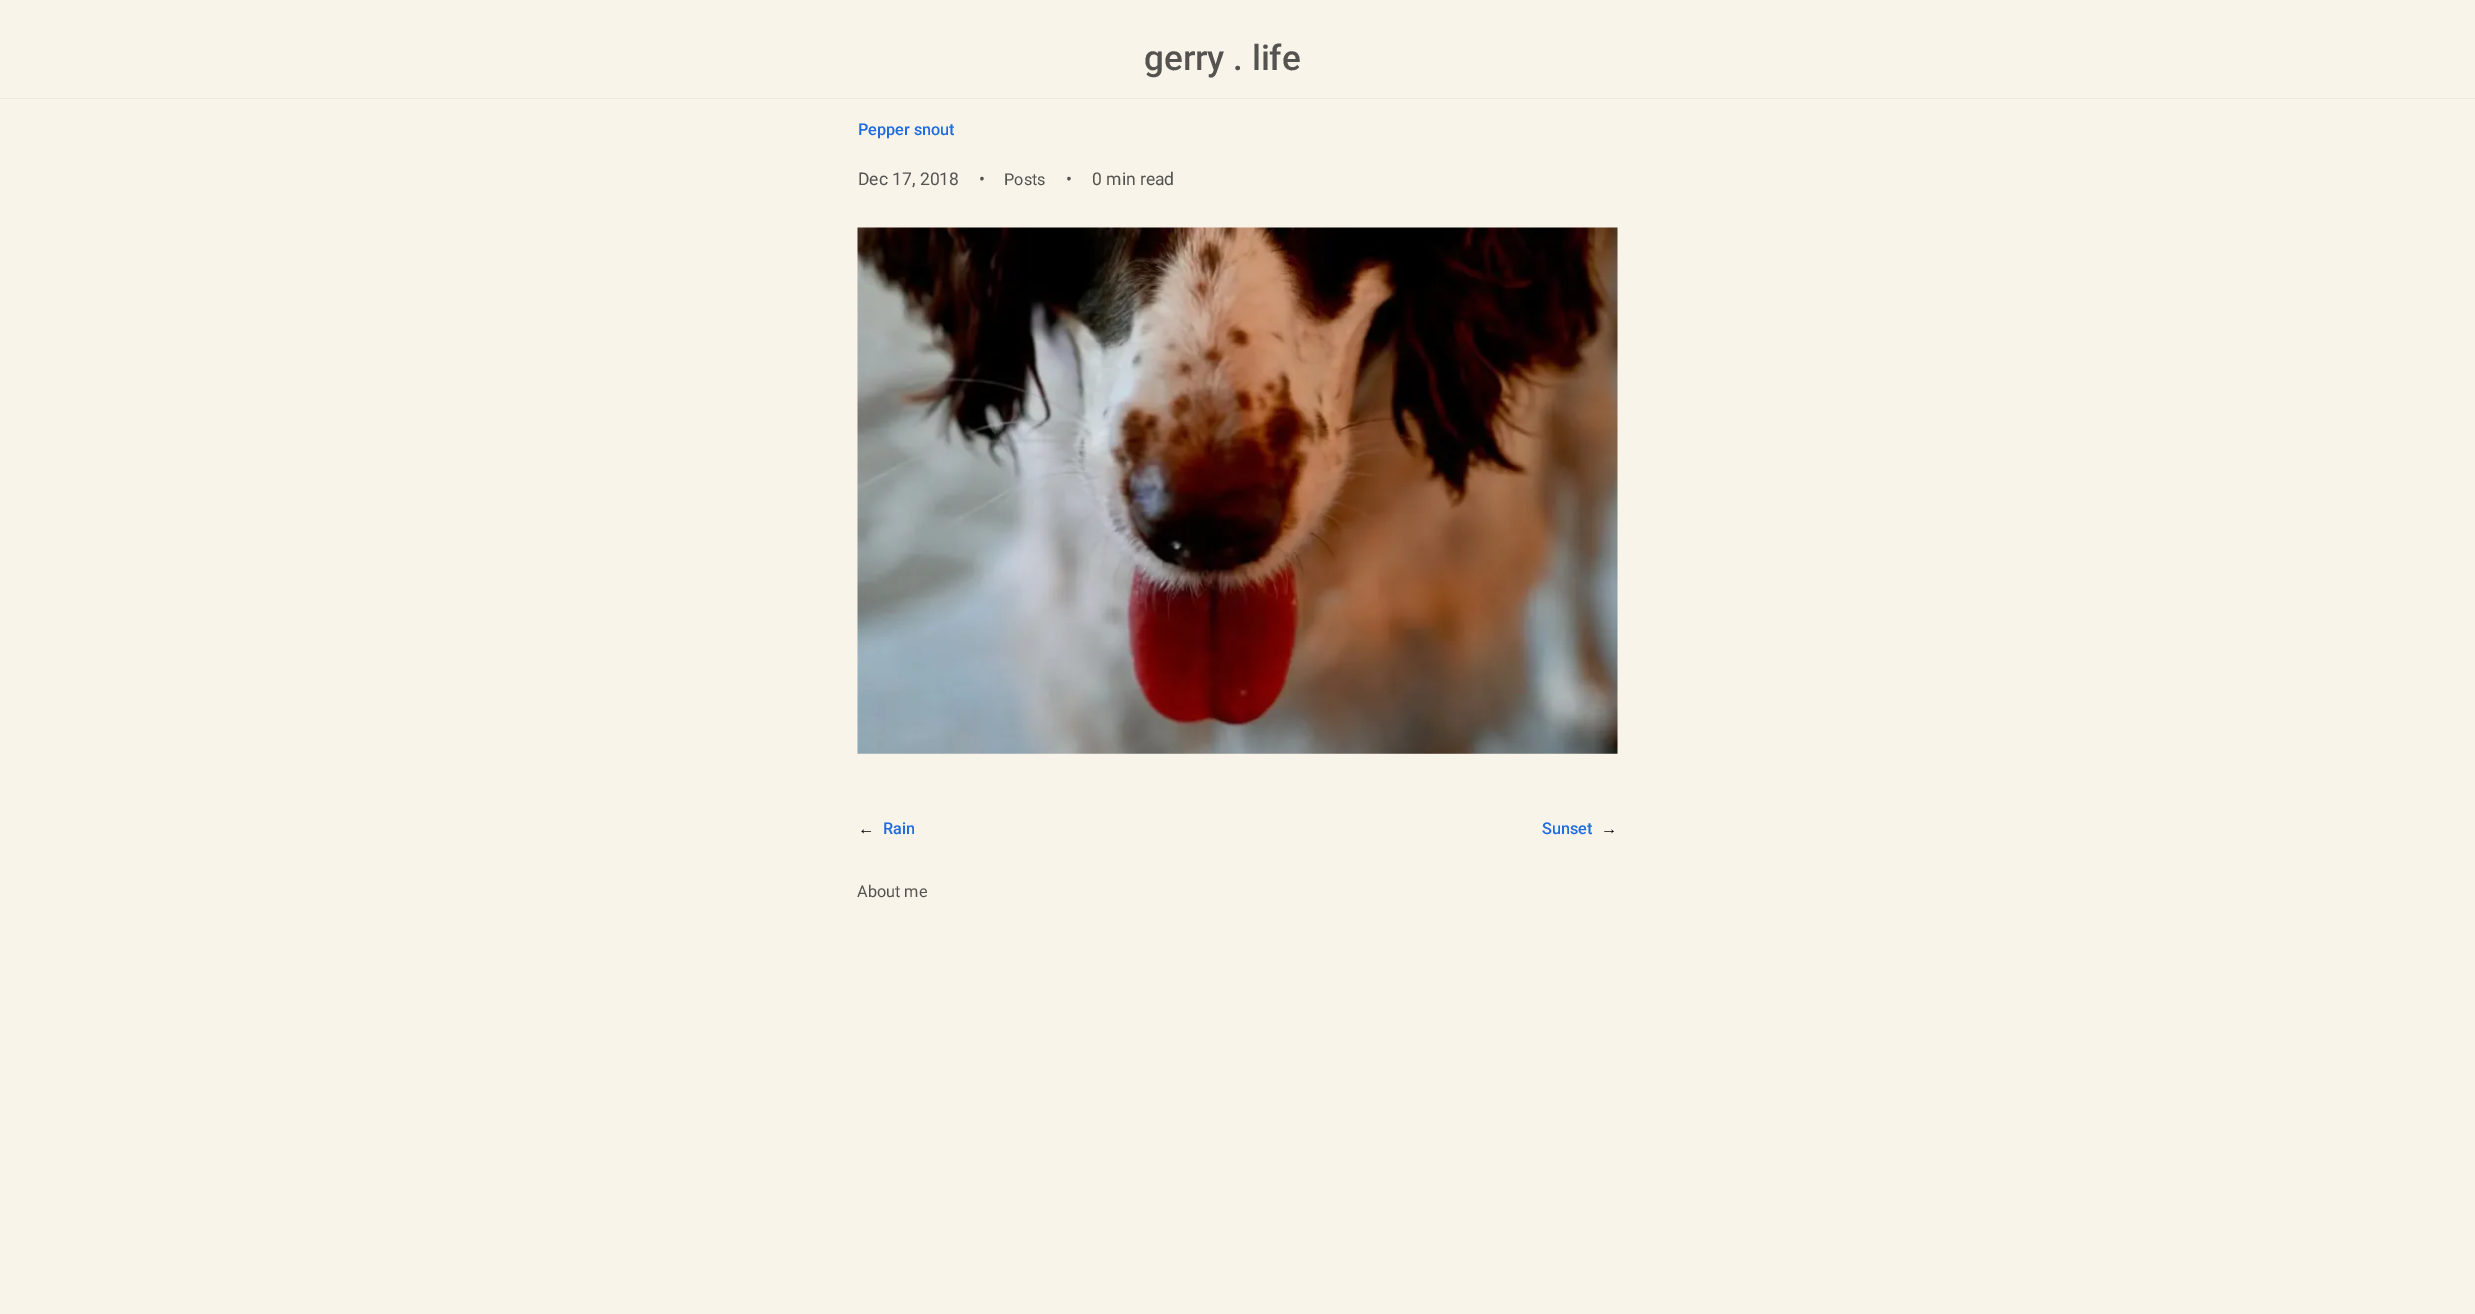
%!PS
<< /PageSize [2475 1314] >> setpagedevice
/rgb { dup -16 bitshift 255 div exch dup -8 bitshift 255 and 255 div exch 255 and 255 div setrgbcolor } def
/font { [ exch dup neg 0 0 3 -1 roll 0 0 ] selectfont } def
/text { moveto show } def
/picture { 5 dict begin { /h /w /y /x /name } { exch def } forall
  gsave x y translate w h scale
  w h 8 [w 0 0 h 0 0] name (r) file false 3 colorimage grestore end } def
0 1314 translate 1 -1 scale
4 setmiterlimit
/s1 { /Roboto-Medium 35 font 16#555350 rgb } def
/s2 { /Roboto-Medium 16.25 font 16#1E6CE0 rgb } def
/s3 { /Roboto-Regular 17.5 font 16#555350 rgb } def
/s4 { /Roboto-Regular 16.25 font 16#555350 rgb } def
/s5 { /LiberationSans-Regular 16.25 font 16#000000 rgb } def
16#F9F4EA rgb
0 0 2475 1314 rectfill
16#EDE8DE rgb
0 98 2475 1 rectfill
s1
(gerry . life) 1144 70 text
s2
(Pepper snout) 858 135 text
s3
(Dec 17, 2018) 858 185 text
(•) 979 185 text
s4
(Posts) 1004 185 text
s3
(•) 1066 185 text
(0 min read) 1092 185 text
(pic1.raw) 857 227 761 527 picture
s5
(←) 858 834 text
s2
(Rain) 883 834 text
(Sunset) 1542 834 text
s5
(→) 1601 834 text
s4
(About me) 857 897 text
showpage
